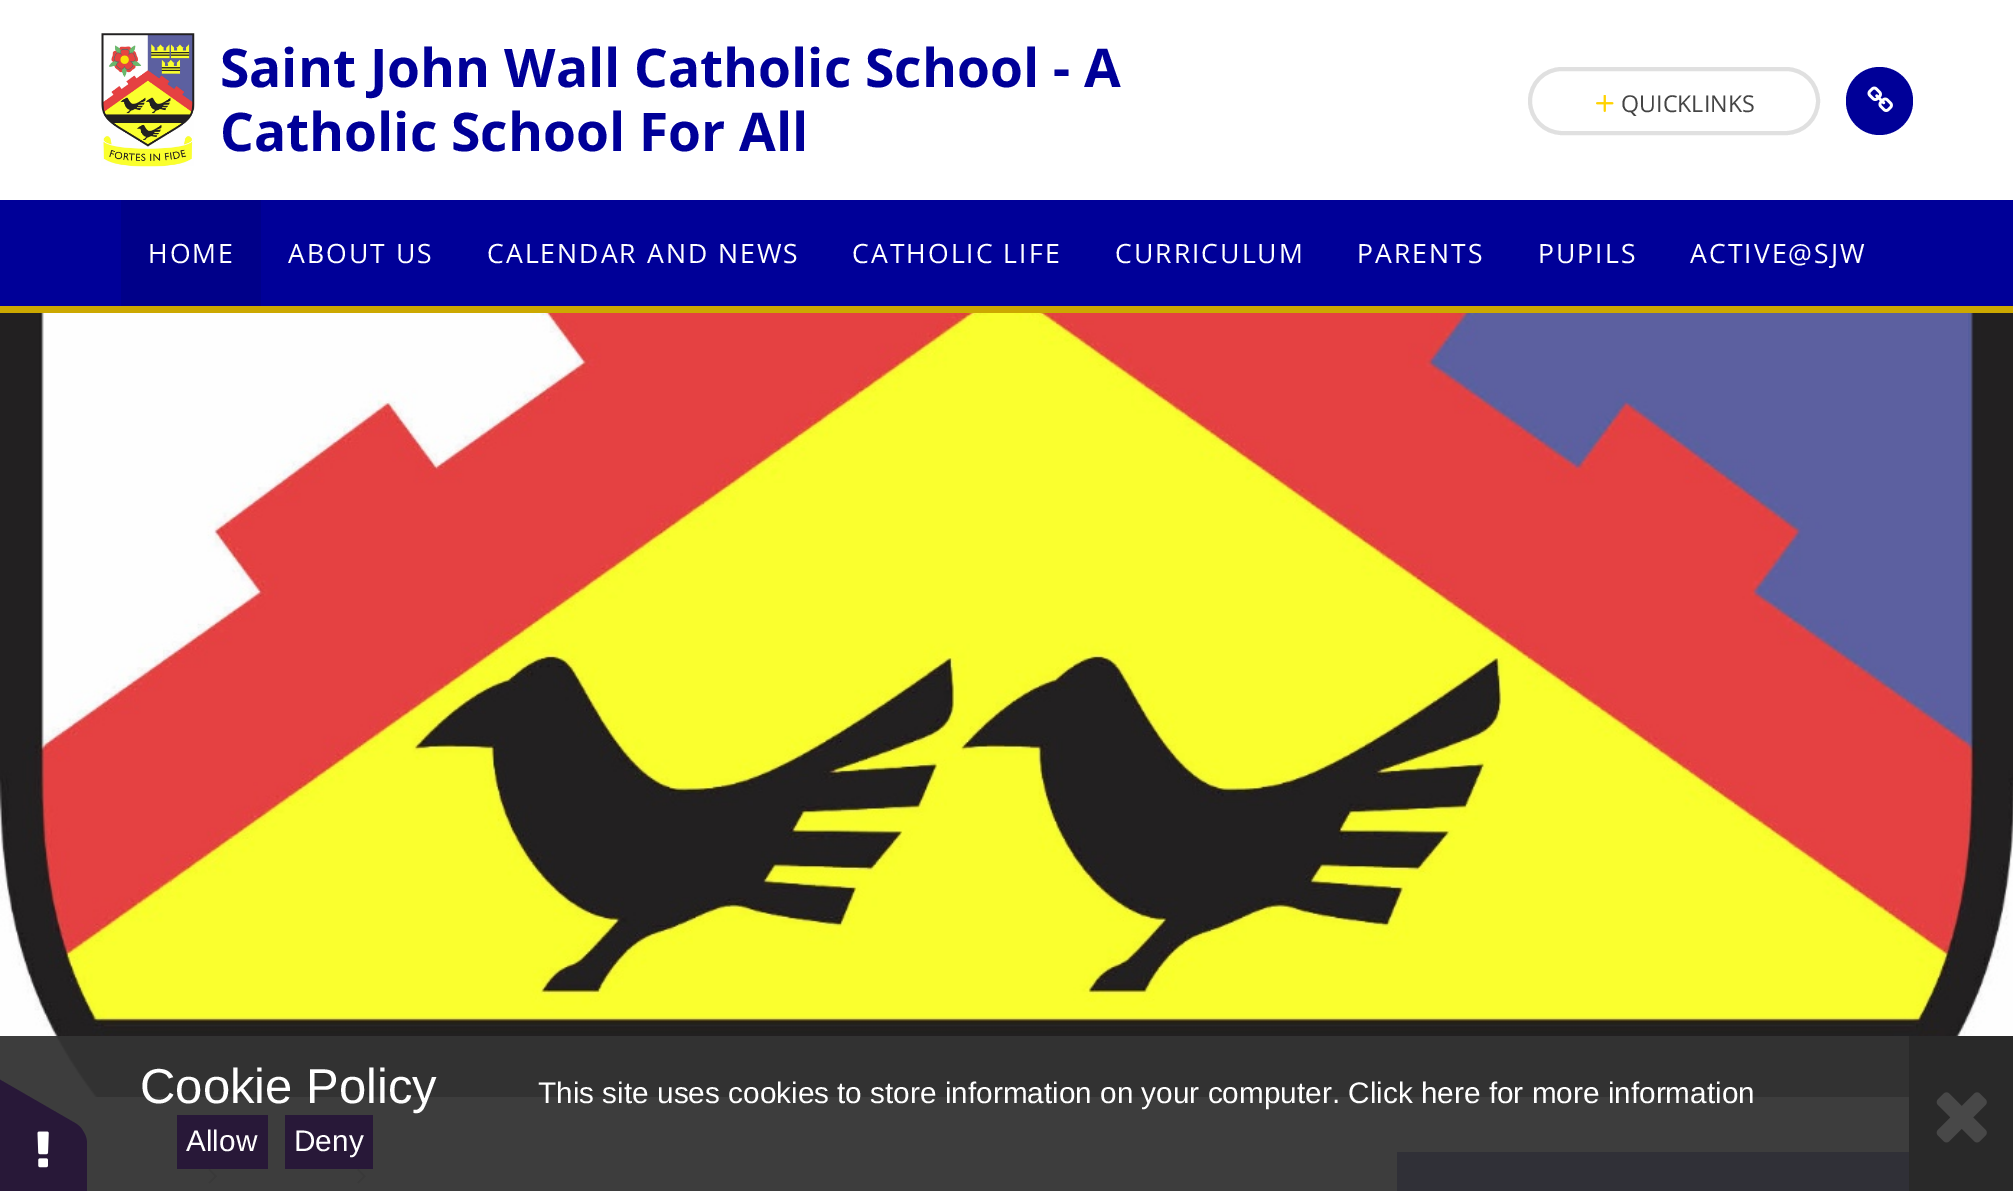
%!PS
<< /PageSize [2013 1191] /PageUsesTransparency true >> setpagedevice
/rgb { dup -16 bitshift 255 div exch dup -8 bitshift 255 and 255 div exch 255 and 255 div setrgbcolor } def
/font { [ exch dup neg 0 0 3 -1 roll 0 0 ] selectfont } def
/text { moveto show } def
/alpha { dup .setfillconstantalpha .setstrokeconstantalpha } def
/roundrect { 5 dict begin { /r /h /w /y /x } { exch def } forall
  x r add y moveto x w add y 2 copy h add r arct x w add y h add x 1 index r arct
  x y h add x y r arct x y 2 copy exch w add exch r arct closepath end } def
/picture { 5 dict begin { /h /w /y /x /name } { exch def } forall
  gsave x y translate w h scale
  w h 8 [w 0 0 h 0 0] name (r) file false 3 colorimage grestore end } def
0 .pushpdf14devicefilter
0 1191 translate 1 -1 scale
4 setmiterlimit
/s1 { /OpenSans-Bold 53.25 font 16#000098 rgb } def
/s2 { /OpenSans-Regular 23.25 font 16#444444 rgb } def
/s3 { /LiberationSans-Regular 49 font 16#FFFFFF rgb } def
/s4 { /LiberationSans-Regular 29.75 font 16#FFFFFF rgb } def
16#FFFFFF rgb
0 0 2013 1191 rectfill
(pic1.raw) 101 33 94 134 picture
s1
(Saint John Wall Catholic School - A) 220 87 text
(Catholic School For All) 220 151 text
16#CCA800 rgb
0 306 2013 7 rectfill
16#000098 rgb
0 200 2013 106 rectfill
16#E0E0E0 rgb
4 setlinewidth
1530 69 288 64 32 roundrect stroke
(pic2.raw) 1596 95 18 17 picture
s2
(QUICKLINKS) 1621 112 text
16#000098 rgb
1846 67 67 68 33.5 roundrect fill
(pic3.raw) 1867 86 26 26 picture
16#000089 rgb
121 200 140 106 rectfill
/OpenSans-Regular 26.6 font
16#FFFFFF rgb
148 263 moveto 2 0 (HOME) ashow
288 263 moveto 2 0 (ABOUT US) ashow
487 263 moveto 2 0 (CALENDAR AND NEWS) ashow
852 263 moveto 2 0 (CATHOLIC LIFE) ashow
1115 263 moveto 2 0 (CURRICULUM) ashow
1357 263 moveto 2 0 (PARENTS) ashow
1538 263 moveto 2 0 (PUPILS) ashow
1690 263 moveto 2 0 (ACTIVE@SJW) ashow
(pic4.raw) 0 313 2013 784 picture
(pic5.raw) 208 1169 9 15 picture
(pic6.raw) 357 1169 9 15 picture
16#000081 rgb
1397 1152 512 39 rectfill
0.95 alpha
16#333333 rgb
0 1036 1909 155 rectfill
1 alpha
16#281838 rgb
87 1144 moveto 87 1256 lineto 87 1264 84 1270 80 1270 curveto -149 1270 lineto -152 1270 -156 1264 -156 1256 curveto -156 1144 lineto -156 1137 -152 1130 -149 1130 curveto 80 1130 lineto 84 1130 87 1137 87 1144 curveto closepath fill
-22 1067 moveto 75 1123 lineto 82 1127 85 1133 83 1136 curveto -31 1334 lineto -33 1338 -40 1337 -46 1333 curveto -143 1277 lineto -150 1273 -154 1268 -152 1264 curveto -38 1066 lineto -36 1063 -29 1063 -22 1067 curveto closepath fill
(pic7.raw) 37 1131 12 37 picture
s3
(Cookie Policy) 140 1103 text
s4
(This site uses cookies to store information on your computer. Click here for more information) 538 1103 text
16#281838 rgb
177 1115 91 54 rectfill
s4
(Allow) 186 1151 text
16#281838 rgb
285 1115 88 54 rectfill
s4
(Deny) 294 1151 text
16#292929 rgb
1909 1036 104 155 rectfill
(pic8.raw) 1936 1092 51 51 picture
.poppdf14devicefilter showpage
